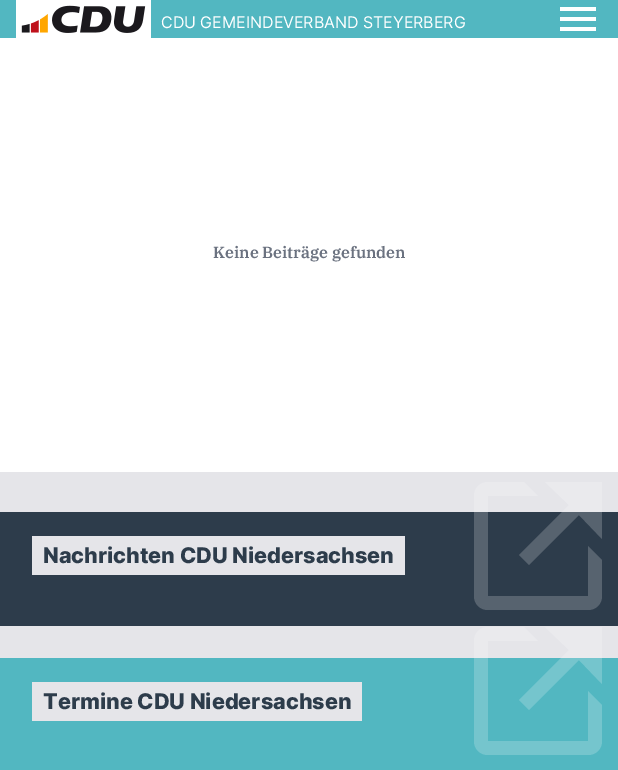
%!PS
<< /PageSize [618 770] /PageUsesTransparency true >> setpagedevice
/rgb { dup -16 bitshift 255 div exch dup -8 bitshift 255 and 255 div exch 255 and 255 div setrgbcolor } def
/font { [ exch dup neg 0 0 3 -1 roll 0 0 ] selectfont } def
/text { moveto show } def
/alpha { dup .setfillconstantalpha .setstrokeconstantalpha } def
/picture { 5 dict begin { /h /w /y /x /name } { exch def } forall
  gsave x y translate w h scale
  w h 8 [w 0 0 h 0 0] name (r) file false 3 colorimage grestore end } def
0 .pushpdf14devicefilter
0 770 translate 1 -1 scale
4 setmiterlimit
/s1 { /Inter-Regular 16 font 16#FFFFFF rgb } def
/s2 { /IBMPlexSerif-SemiBold 16 font 16#6B7280 rgb } def
/s3 { /Inter-ExtraBold 21.6 font 16#2D3C4B rgb } def
16#FFFFFF rgb
0 0 618 770 rectfill
16#52B7C1 rgb
0 0 618 38 rectfill
(pic1.raw) 16 0 135 38 picture
s1
(CDU GEMEINDEVERBAND STEYERBERG) 161 28 text
596 31 moveto 560 31 lineto 560 27 lineto 596 27 lineto closepath 596 21 moveto 560 21 lineto 560 17 lineto 596 17 lineto closepath 596 11 moveto 560 11 lineto 560 7 lineto 596 7 lineto closepath fill
s2
(Keine Beiträge gefunden) 213 258 text
16#E5E5E9 rgb
0 472 618 186 rectfill
16#2D3C4B rgb
0 512 618 114 rectfill
16#E5E5E9 rgb
32 536 373 39 rectfill
s3
(Nachrichten CDU Niedersachsen) 43 563 text
0.2 alpha
16#FFFFFF rgb
545 482 moveto 569 505 lineto 519 555 lineto 529 565 lineto 579 515 lineto 602 539 lineto 602 482 lineto closepath fill
588 596 moveto 488 596 lineto 488 496 lineto 538 496 lineto 524 482 lineto 488 482 lineto 480 482 474 488 474 496 curveto 474 596 lineto 474 604 480 610 488 610 curveto 588 610 lineto 596 610 602 604 602 596 curveto 602 560 lineto 588 546 lineto closepath fill
1 alpha
16#52B7C1 rgb
0 658 618 112 rectfill
16#E5E5E9 rgb
32 682 330 39 rectfill
s3
(Termine CDU Niedersachsen) 43 709 text
0.2 alpha
16#FFFFFF rgb
545 627 moveto 569 650 lineto 519 700 lineto 529 710 lineto 579 660 lineto 602 684 lineto 602 627 lineto closepath fill
588 741 moveto 488 741 lineto 488 641 lineto 538 641 lineto 524 627 lineto 488 627 lineto 480 627 474 633 474 641 curveto 474 741 lineto 474 749 480 755 488 755 curveto 588 755 lineto 596 755 602 749 602 741 curveto 602 705 lineto 588 691 lineto closepath fill
.poppdf14devicefilter showpage
